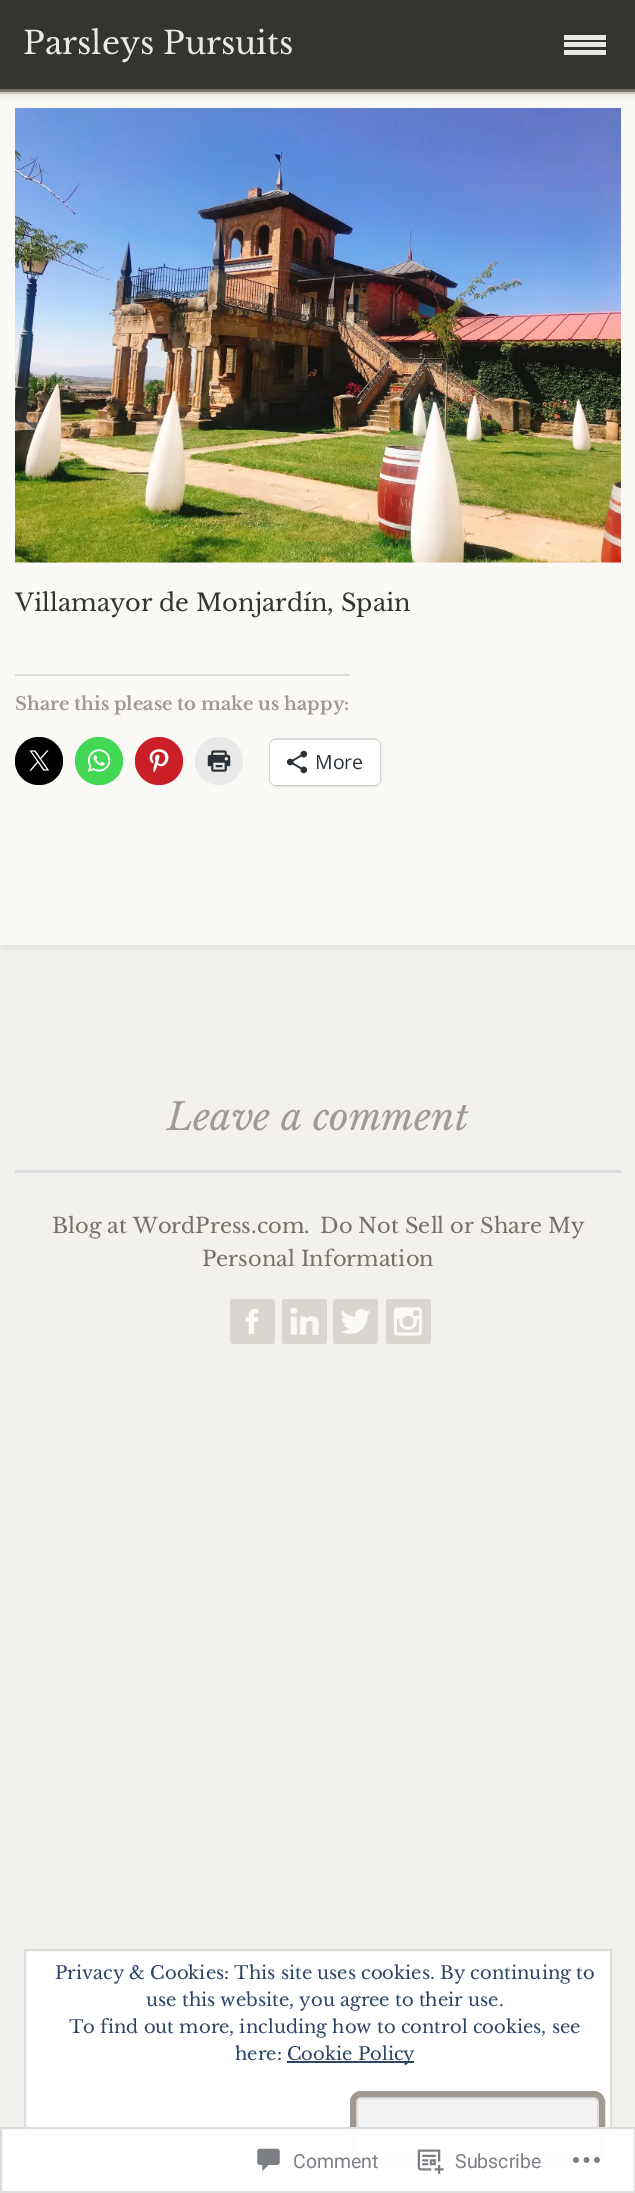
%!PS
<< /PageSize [635 2193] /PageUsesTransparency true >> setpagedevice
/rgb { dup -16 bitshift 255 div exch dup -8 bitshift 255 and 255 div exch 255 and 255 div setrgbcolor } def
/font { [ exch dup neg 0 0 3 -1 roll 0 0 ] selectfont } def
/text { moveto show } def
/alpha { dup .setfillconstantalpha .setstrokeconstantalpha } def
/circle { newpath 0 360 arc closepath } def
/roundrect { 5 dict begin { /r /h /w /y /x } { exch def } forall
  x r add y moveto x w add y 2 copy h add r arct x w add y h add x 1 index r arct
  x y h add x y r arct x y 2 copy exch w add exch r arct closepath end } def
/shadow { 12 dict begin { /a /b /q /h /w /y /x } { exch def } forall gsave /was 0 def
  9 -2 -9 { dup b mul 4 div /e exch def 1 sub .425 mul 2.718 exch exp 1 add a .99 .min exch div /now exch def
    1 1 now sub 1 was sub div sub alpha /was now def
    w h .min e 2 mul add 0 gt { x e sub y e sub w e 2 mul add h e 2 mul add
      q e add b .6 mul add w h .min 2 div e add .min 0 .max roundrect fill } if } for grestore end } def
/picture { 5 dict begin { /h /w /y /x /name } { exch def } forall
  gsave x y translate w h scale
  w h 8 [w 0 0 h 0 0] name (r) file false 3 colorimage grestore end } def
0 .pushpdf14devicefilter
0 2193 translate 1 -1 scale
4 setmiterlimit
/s1 { /LibreBaskerville-Regular 31.5 font 16#EAE9E6 rgb } def
/s2 { /LibreBaskerville-Regular 24 font 16#363431 rgb } def
/s3 { /LibreBaskerville-Bold 18 font 16#A09A92 rgb } def
/s4 { /OpenSans-Regular 19.5 font 16#2C3338 rgb } def
/s5 { /LibreBaskerville-Italic 37.5 font 16#A09A92 rgb } def
/s6 { /LibreBaskerville-Regular 21 font 16#787065 rgb } def
/s7 { /Roboto-Regular 19.5 font 16#7B7F84 rgb } def
/s8 { /LibreBaskerville-Regular 18 font 16#2E4467 rgb } def
16#F2F1ED rgb
0 0 635 2193 rectfill
16#000000 rgb
3 96 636 852 0 4.5 0.05 shadow
16#D9D6D0 rgb
0 92 635 2 rectfill
16#FAF9F5 rgb
0 94 635 851 rectfill
16#000000 rgb
0 3 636 92 0 4 0.1 shadow
16#363431 rgb
0 0 635 89 rectfill
16#787065 rgb
0 89 635 3 rectfill
s1
(Parsleys Pursuits) 23 54 text
564 35 42 5 rectfill
564 42 42 5 rectfill
564 50 42 5 rectfill
(pic1.raw) 15 108 606 455 picture
s2
(Villamayor de Monjardín, Spain) 15 611 text
16#DCDCDE rgb
15 674 335 2 rectfill
s3
(Share this please to make us happy:) 15 710 text
16#000000 rgb
39 761 24 circle fill
(pic2.raw) 29 750 21 21 picture
16#43D854 rgb
99 761 24 circle fill
(pic3.raw) 87 749 24 23 picture
16#CA1F27 rgb
159 761 24 circle fill
(pic4.raw) 149 749 20 24 picture
16#E9E9E9 rgb
219 761 24 circle fill
(pic5.raw) 207 750 24 22 picture
16#DCDBD8 rgb
2 setlinewidth
270 739 110 46 7 roundrect stroke
16#000000 rgb
270 741 110 45 6 1.5 0.12 shadow
16#FFFFFF rgb
270 740 110 45 6 roundrect fill
(pic6.raw) 286 750 22 24 picture
s4
(More) 315 769 text
s5
(Leave a comment) 167 1130 text
16#DCDCDE rgb
15 1170 606 3 rectfill
s6
(Blog at WordPress.com.) 52 1233 text
(Do Not Sell or Share My) 320 1233 text
(Personal Information) 202 1266 text
16#D9D6D0 rgb
230 1299 45 45 3 roundrect fill
(pic7.raw) 245 1309 14 25 picture
282 1299 45 45 3 roundrect fill
(pic8.raw) 290 1307 29 28 picture
333 1299 45 45 3 roundrect fill
(pic9.raw) 340 1309 31 25 picture
386 1299 45 45 3 roundrect fill
(pic10.raw) 393 1307 30 29 picture
16#FFFFFF rgb
25 1950 moveto 611 1950 lineto 611 2168 lineto 25 2168 lineto closepath gsave fill grestore
16#DEDEDE rgb
stroke
16#F3F3F3 rgb
357 2098 241 57 4 roundrect gsave fill grestore
16#DEDEDE rgb
stroke
16#A09A92 rgb
6 setlinewidth
353 2094 249 65 8 roundrect stroke
0.98 alpha
16#FFFFFF rgb
0 2127 635 66 rectfill
16#DCDCDE rgb
2 setlinewidth
1 2128 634 64 rectstroke
1 alpha
(pic11.raw) 257 2148 23 24 picture
s7
(Comment) 293 2168 text
(pic12.raw) 417 2149 27 25 picture
(Subscribe) 455 2168 text
(pic13.raw) 573 2157 27 6 picture
s8
(Privacy & Cookies: This site uses cookies. By continuing to) 55 1979 text
(use this website, you agree to their use.) 146 2006 text
(To find out more, including how to control cookies, see) 69 2033 text
(here:) 235 2060 text
287 2061 127 2 rectfill
(Cookie Policy) 287 2060 text
.poppdf14devicefilter showpage
